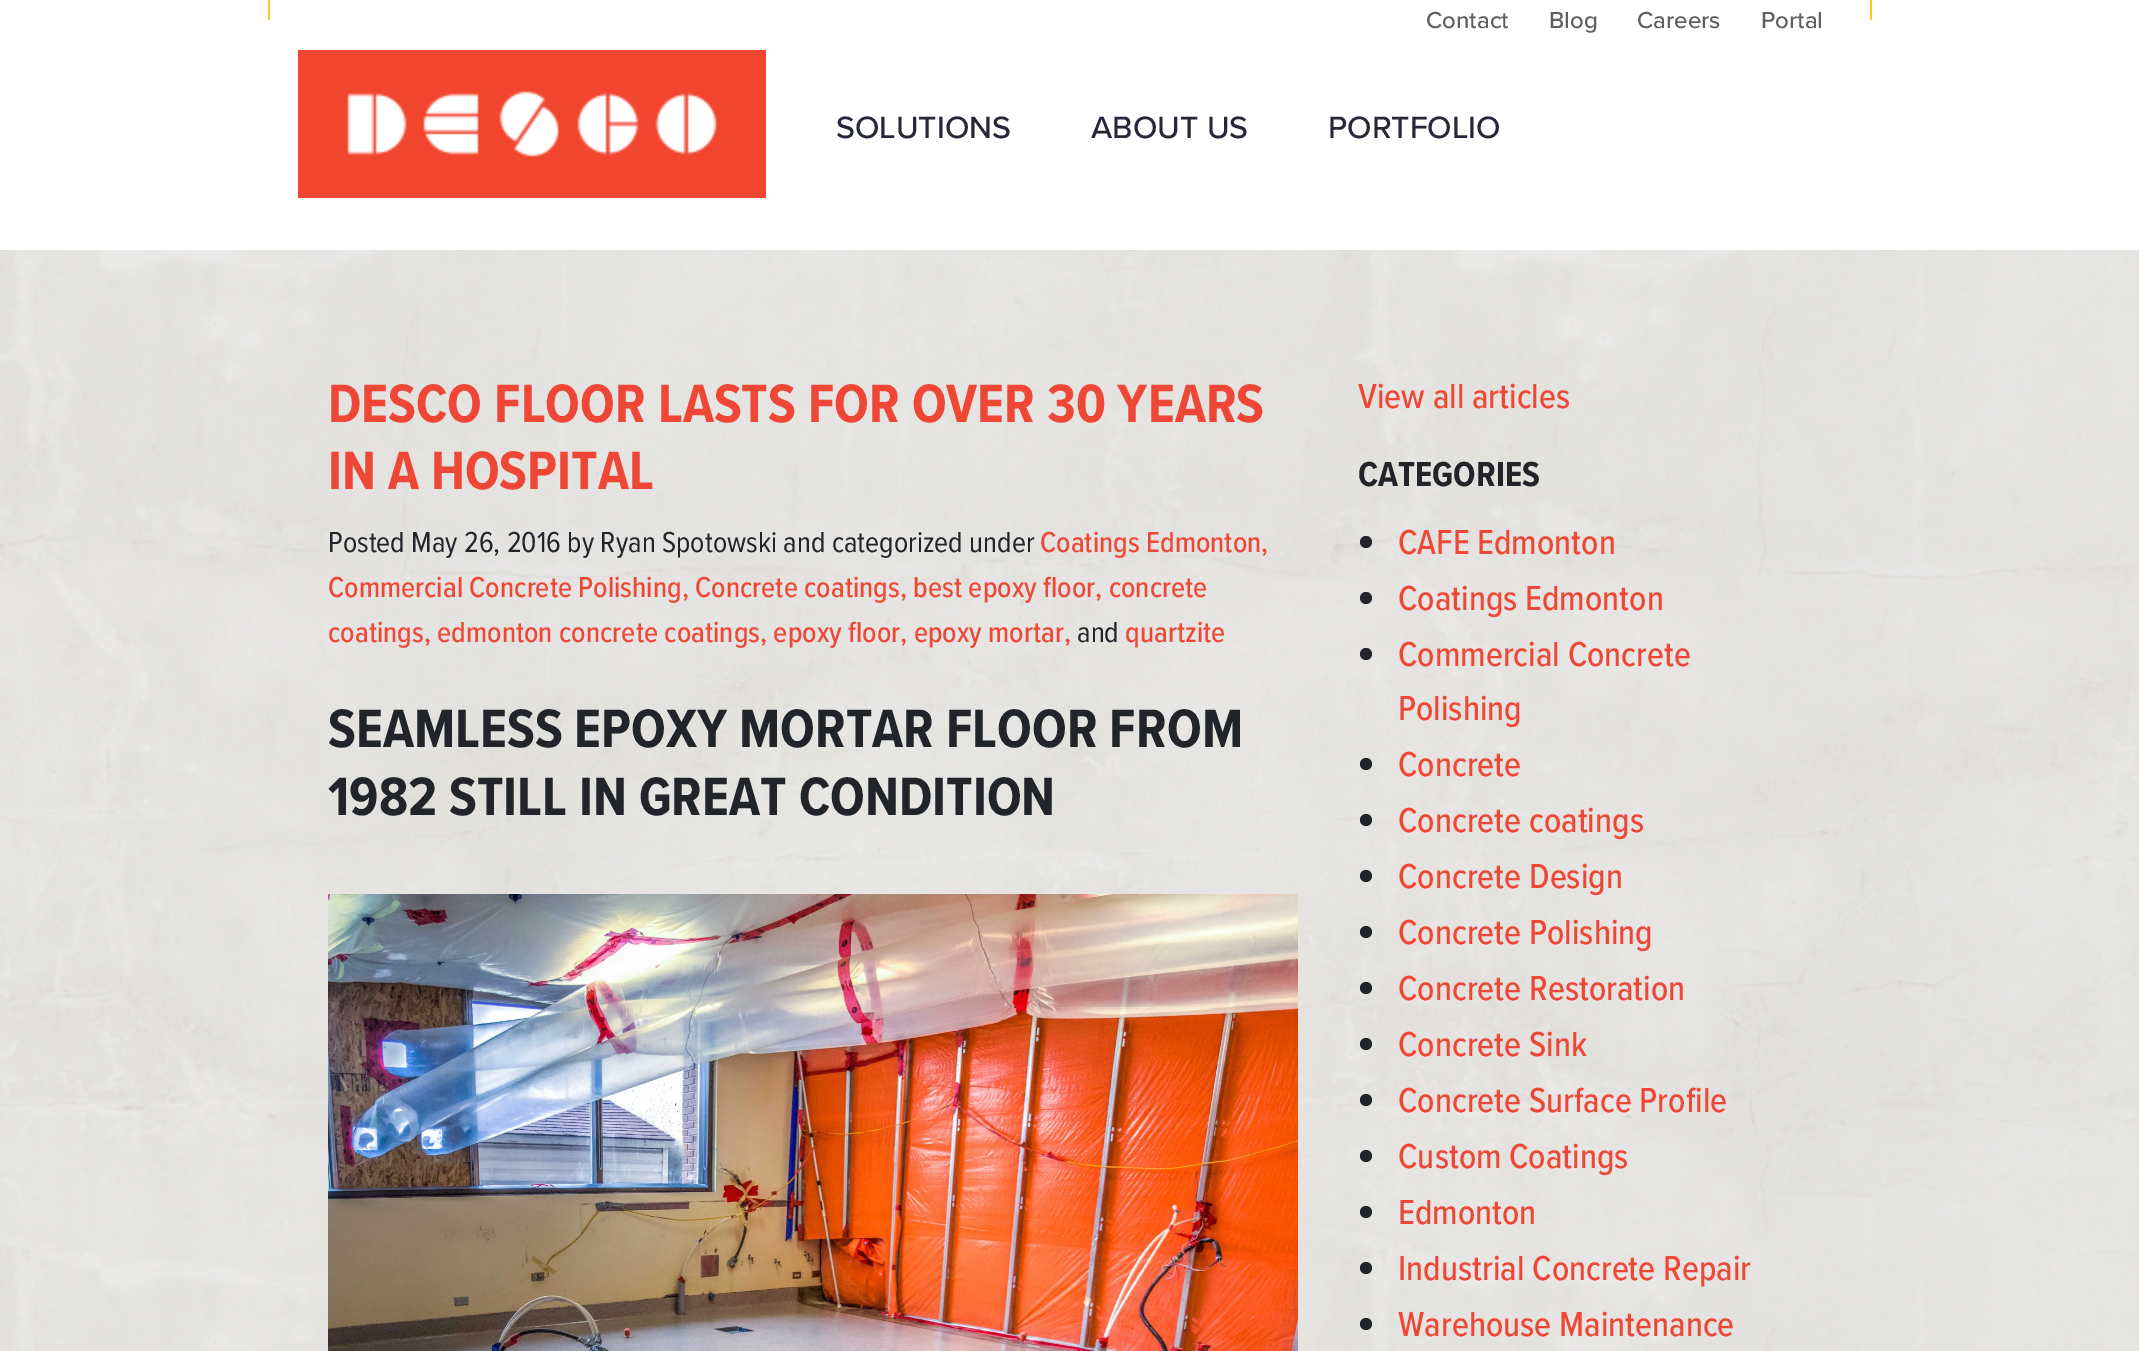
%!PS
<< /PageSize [2139 1351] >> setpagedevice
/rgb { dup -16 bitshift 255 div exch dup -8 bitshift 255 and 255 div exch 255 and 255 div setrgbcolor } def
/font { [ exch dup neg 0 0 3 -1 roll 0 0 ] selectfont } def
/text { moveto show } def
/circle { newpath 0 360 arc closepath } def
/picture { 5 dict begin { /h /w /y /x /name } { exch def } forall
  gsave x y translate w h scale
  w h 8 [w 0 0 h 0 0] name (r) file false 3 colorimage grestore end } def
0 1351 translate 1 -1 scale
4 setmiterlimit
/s1 { /ProximaNova-Medium 24 font 16#62605F rgb } def
/s2 { /ProximaNova-Medium 32 font 16#262838 rgb } def
/s3 { /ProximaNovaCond-Bold 56 font 16#EF4736 rgb } def
/s4 { /ProximaNovaCond-Regular 30 font 16#212529 rgb } def
/s5 { /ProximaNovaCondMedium-Medium 30 font 16#EF4736 rgb } def
/s6 { /ProximaNovaCond-Bold 56 font 16#212529 rgb } def
/s7 { /ProximaNovaCondMedium-Medium 36 font 16#EF4736 rgb } def
/s8 { /ProximaNovaCond-Bold 36 font 16#212529 rgb } def
16#FFFFFF rgb
0 0 2139 1351 rectfill
16#FFC91F rgb
268 0 2 20 rectfill
s1
(Contact) 1426 28 text
(Blog) 1549 28 text
(Careers) 1637 28 text
(Portal) 1761 28 text
16#FFC91F rgb
1870 0 2 20 rectfill
(pic1.raw) 298 50 468 148 picture
s2
(SOLUTIONS) 836 138 text
(ABOUT US) 1091 138 text
(PORTFOLIO) 1328 138 text
(pic2.raw) 0 250 2139 1101 picture
s3
(DESCO FLOOR LASTS FOR OVER 30 YEARS) 328 422 text
(IN A HOSPITAL) 328 489 text
s4
(Posted May 26, 2016 by Ryan Spotowski and categorized under) 328 552 text
s5
(Coatings Edmonton,) 1040 552 text
(Commercial Concrete Polishing, Concrete coatings, best epoxy floor, concrete) 328 597 text
(coatings, edmonton concrete coatings, epoxy floor, epoxy mortar,) 328 642 text
s4
(and) 1077 642 text
s5
(quartzite) 1125 642 text
s6
(SEAMLESS EPOXY MORTAR FLOOR FROM) 328 747 text
(1982 STILL IN GREAT CONDITION) 328 815 text
(pic3.raw) 328 894 970 457 picture
s7
(View all articles) 1358 408 text
s8
(CATEGORIES) 1358 486 text
1366 542 6 circle fill
s7
(CAFE Edmonton) 1398 554 text
16#212529 rgb
1366 598 6 circle fill
s7
(Coatings Edmonton) 1398 610 text
16#212529 rgb
1366 654 6 circle fill
s7
(Commercial Concrete) 1398 666 text
(Polishing) 1398 720 text
16#212529 rgb
1366 764 6 circle fill
s7
(Concrete) 1398 776 text
16#212529 rgb
1366 820 6 circle fill
s7
(Concrete coatings) 1398 832 text
16#212529 rgb
1366 876 6 circle fill
s7
(Concrete Design) 1398 888 text
16#212529 rgb
1366 932 6 circle fill
s7
(Concrete Polishing) 1398 944 text
16#212529 rgb
1366 988 6 circle fill
s7
(Concrete Restoration) 1398 1000 text
16#212529 rgb
1366 1044 6 circle fill
s7
(Concrete Sink) 1398 1056 text
16#212529 rgb
1366 1100 6 circle fill
s7
(Concrete Surface Profile) 1398 1112 text
16#212529 rgb
1366 1156 6 circle fill
s7
(Custom Coatings) 1398 1168 text
16#212529 rgb
1366 1212 6 circle fill
s7
(Edmonton) 1398 1224 text
16#212529 rgb
1366 1268 6 circle fill
s7
(Industrial Concrete Repair) 1398 1280 text
16#212529 rgb
1366 1324 6 circle fill
s7
(Warehouse Maintenance) 1398 1336 text
showpage
